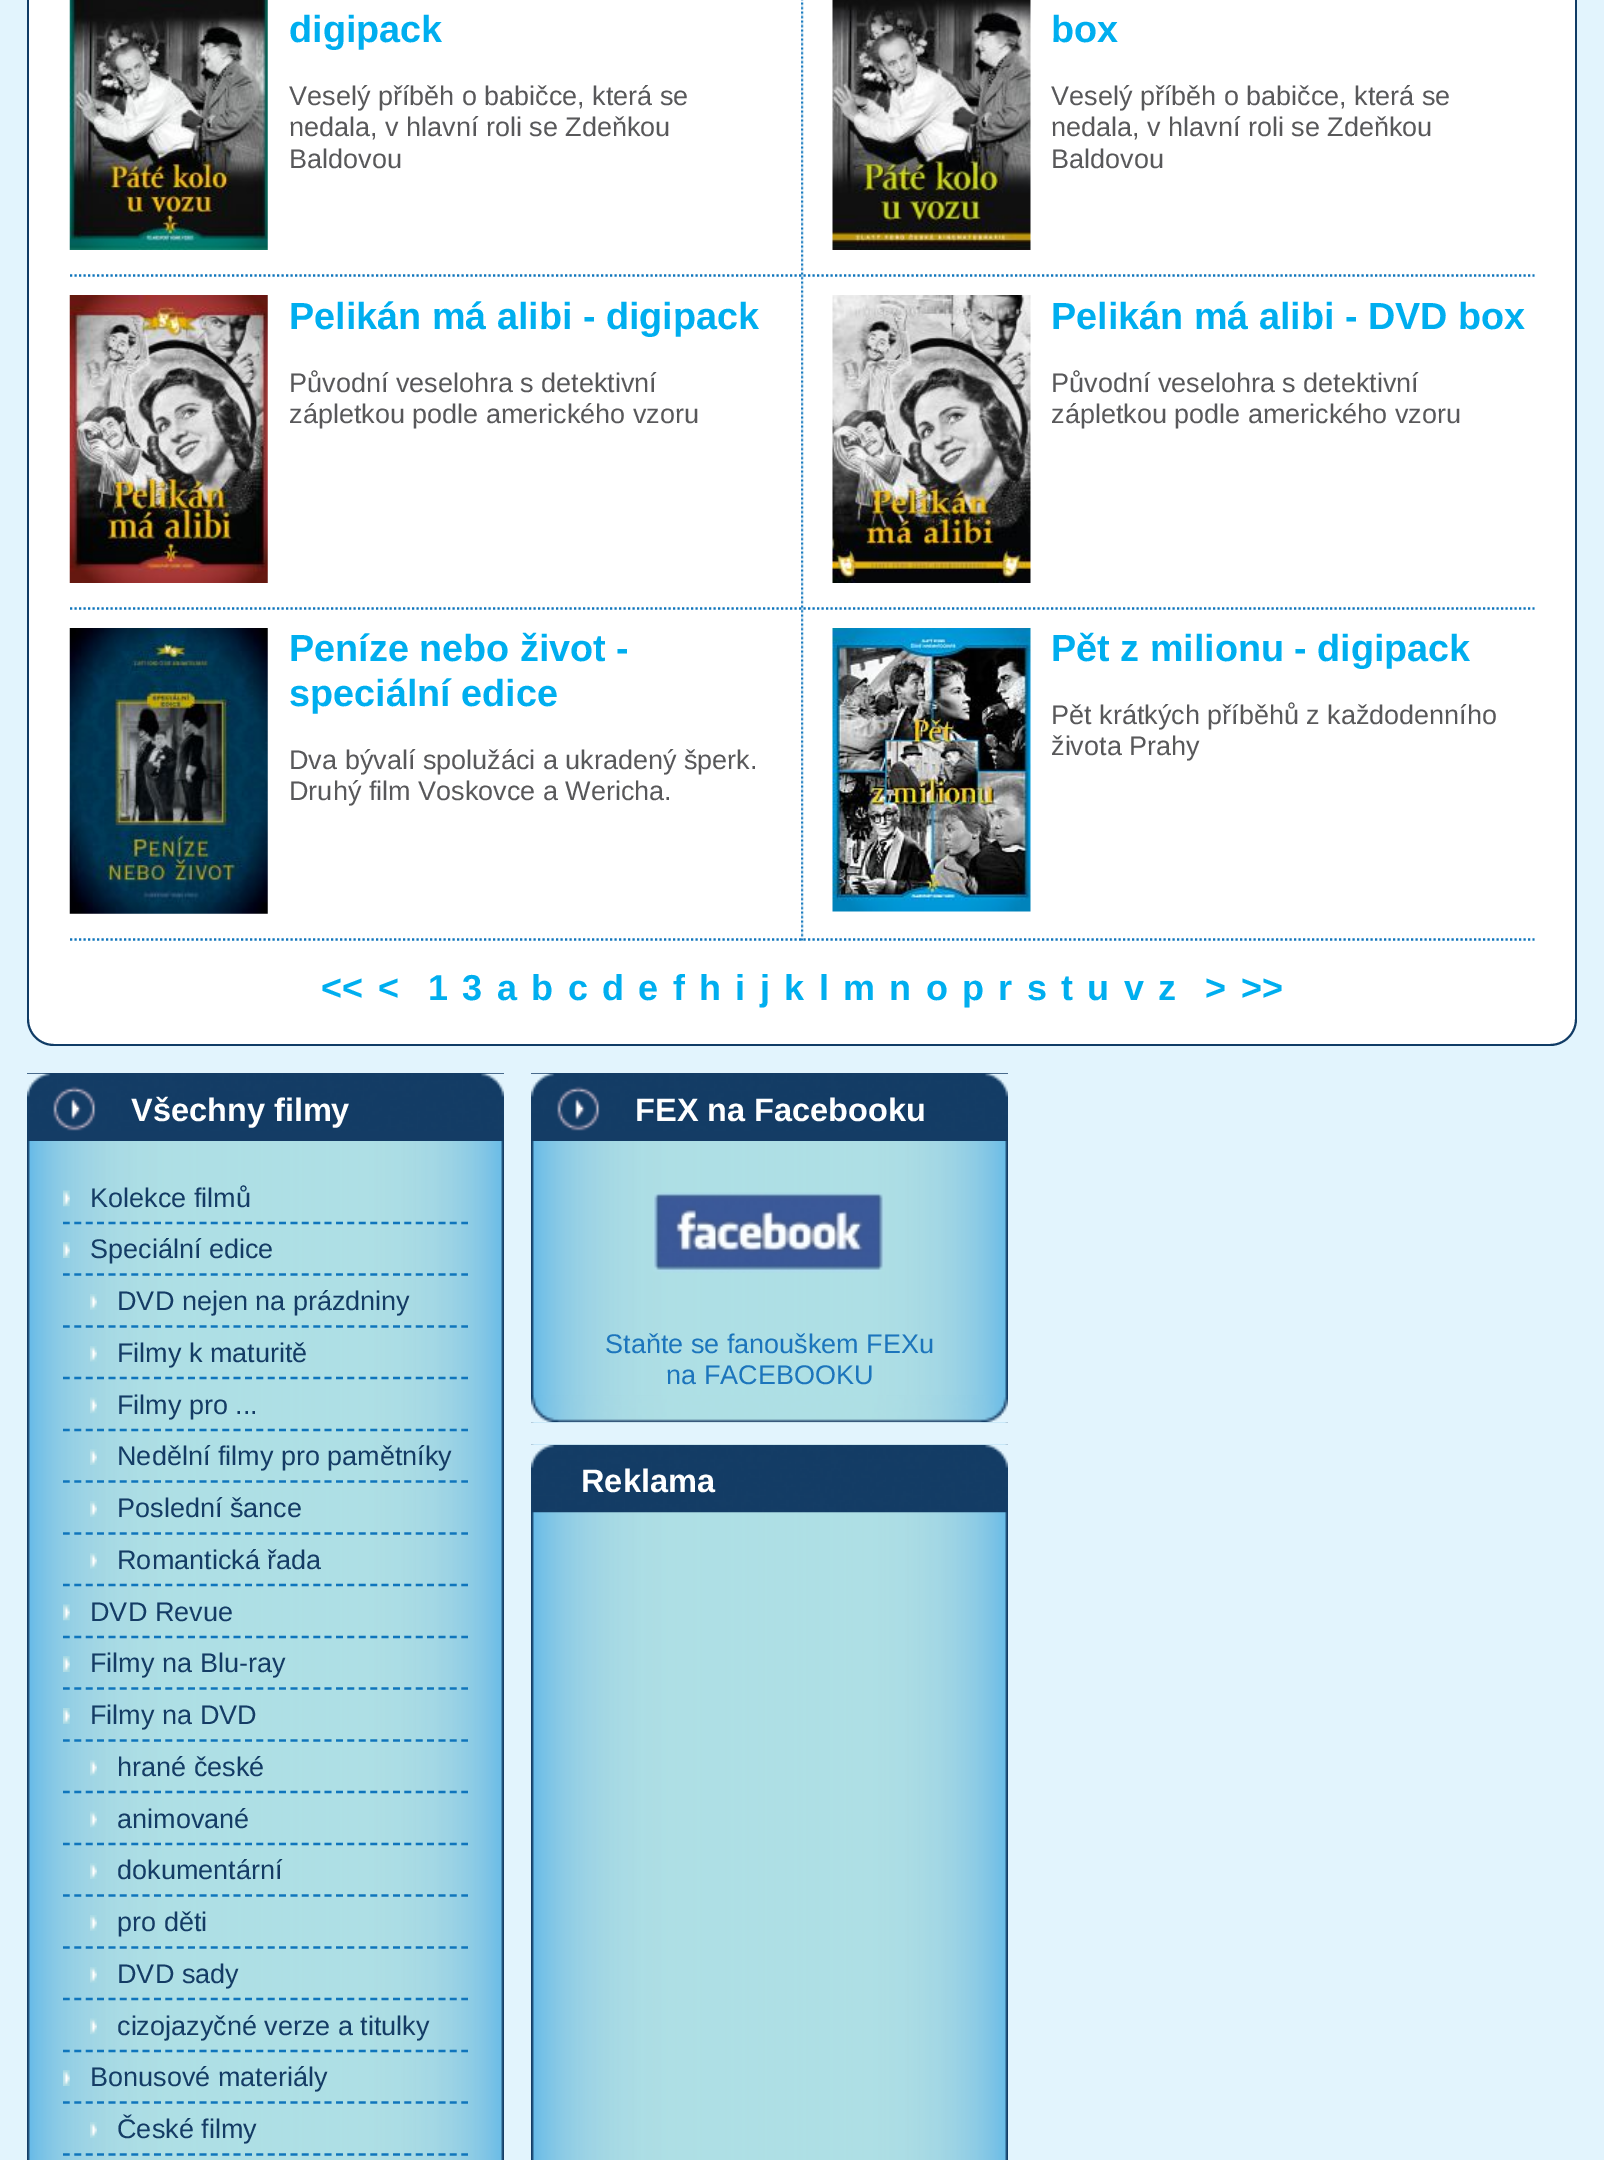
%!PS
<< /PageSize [1604 2160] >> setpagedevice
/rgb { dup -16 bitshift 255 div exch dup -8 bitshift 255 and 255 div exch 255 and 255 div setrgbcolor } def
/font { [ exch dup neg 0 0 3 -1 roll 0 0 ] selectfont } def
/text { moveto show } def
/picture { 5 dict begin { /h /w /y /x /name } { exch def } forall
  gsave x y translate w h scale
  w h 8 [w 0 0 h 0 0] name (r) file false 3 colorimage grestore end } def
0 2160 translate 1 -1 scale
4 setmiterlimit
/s1 { /LiberationSans-Bold 37.75 font 16#00AEEF rgb } def
/s2 { /LiberationSans-Regular 27 font 16#58585A rgb } def
/s3 { /LiberationSans-Bold 36 font 16#00AEEF rgb } def
/s4 { /LiberationSans-Bold 32.5 font 16#FFFFFF rgb } def
/s5 { /LiberationSans-Regular 27 font 16#143C65 rgb } def
/s6 { /LiberationSans-Regular 27 font 16#1C75BC rgb } def
16#E2F4FD rgb
0 0 1604 2160 rectfill
16#FFFFFF rgb
27 -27 moveto 1577 -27 lineto 1577 1019 lineto 1577 1034 1565 1046 1550 1046 curveto 54 1046 lineto 39 1046 27 1034 27 1019 curveto closepath fill
16#103C66 rgb
27 -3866 moveto 1577 -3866 lineto 1577 1019 lineto 1577 1034 1565 1046 1550 1046 curveto 54 1046 lineto 39 1046 27 1034 27 1019 curveto closepath 29 -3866 moveto 1575 -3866 lineto 1575 1019 lineto 1575 1033 1564 1044 1550 1044 curveto 54 1044 lineto 40 1044 29 1033 29 1019 curveto closepath eofill
(pic1.raw) 801 0 3 941 picture
(pic2.raw) 69 0 199 250 picture
s1
(digipack) 289 42 text
s2
(Veselý příběh o babičce, která se) 289 105 text
(nedala, v hlavní roli se Zdeňkou) 289 136 text
(Baldovou) 289 168 text
(pic3.raw) 832 0 199 250 picture
s1
(box) 1051 42 text
s2
(Veselý příběh o babičce, která se) 1051 105 text
(nedala, v hlavní roli se Zdeňkou) 1051 136 text
(Baldovou) 1051 168 text
16#0F75BC rgb
2.2 setlinewidth
[2.25 2.25] 0 setdash
70 275.5 moveto 1534.5 275.5 lineto stroke
(pic4.raw) 69 295 199 288 picture
s1
(Pelikán má alibi - digipack) 289 329 text
s2
(Původní veselohra s detektivní) 289 392 text
(zápletkou podle amerického vzoru) 289 423 text
(pic5.raw) 832 295 199 288 picture
s1
(Pelikán má alibi - DVD box) 1051 329 text
s2
(Původní veselohra s detektivní) 1051 392 text
(zápletkou podle amerického vzoru) 1051 423 text
16#0F75BC rgb
70 608.5 moveto 1534.5 608.5 lineto stroke
(pic6.raw) 69 628 199 286 picture
s1
(Peníze nebo život -) 289 661 text
(speciální edice) 289 706 text
s2
(Dva bývalí spolužáci a ukradený šperk.) 289 769 text
(Druhý film Voskovce a Wericha.) 289 800 text
(pic7.raw) 832 628 199 284 picture
s1
(Pět z milionu - digipack) 1051 661 text
s2
(Pět krátkých příběhů z každodenního) 1051 724 text
(života Prahy) 1051 755 text
16#0F75BC rgb
70 939.5 moveto 1534.5 939.5 lineto stroke
s3
(<<) 321 1000 text
(<) 378 1000 text
(1) 428 1000 text
(3) 462 1000 text
(a) 497 1000 text
(b) 531 1000 text
(c) 568 1000 text
(d) 602 1000 text
(e) 638 1000 text
(f) 673 1000 text
(h) 699 1000 text
(i) 735 1000 text
(j) 760 1000 text
(k) 784 1000 text
(l) 819 1000 text
(m) 843 1000 text
(n) 889 1000 text
(o) 926 1000 text
(p) 962 1000 text
(r) 998 1000 text
(s) 1027 1000 text
(t) 1061 1000 text
(u) 1087 1000 text
(v) 1124 1000 text
(z) 1158 1000 text
(>) 1205 1000 text
(>>) 1241 1000 text
(pic8.raw) 27 1141 477 1019 picture
16#143C65 rgb
27 1073 477 68 rectfill
(pic9.raw) 27 1073 477 58 picture
s4
(Všechny filmy) 131 1121 text
(pic10.raw) 63 1190 7 17 picture
s5
(Kolekce filmů) 90 1207 text
16#0F75BC rgb
[6.75 4.63] 0 setdash
63 1223 moveto 468 1223 lineto stroke
(pic11.raw) 63 1242 7 16 picture
s5
(Speciální edice) 90 1258 text
16#0F75BC rgb
63 1274.5 moveto 468 1274.5 lineto stroke
(pic12.raw) 90 1294 7 16 picture
s5
(DVD nejen na prázdniny) 117 1310 text
16#0F75BC rgb
63 1326.5 moveto 468 1326.5 lineto stroke
(pic13.raw) 90 1346 7 16 picture
s5
(Filmy k maturitě) 117 1362 text
16#0F75BC rgb
63 1378 moveto 468 1378 lineto stroke
(pic14.raw) 90 1397 7 17 picture
s5
(Filmy pro ...) 117 1414 text
16#0F75BC rgb
63 1430 moveto 468 1430 lineto stroke
(pic15.raw) 90 1449 7 16 picture
s5
(Nedělní filmy pro pamětníky) 117 1465 text
16#0F75BC rgb
63 1481.5 moveto 468 1481.5 lineto stroke
(pic12.raw) 90 1501 7 16 picture
s5
(Poslední šance) 117 1517 text
16#0F75BC rgb
63 1533.5 moveto 468 1533.5 lineto stroke
(pic13.raw) 90 1553 7 16 picture
s5
(Romantická řada) 117 1569 text
16#0F75BC rgb
63 1585 moveto 468 1585 lineto stroke
(pic10.raw) 63 1604 7 17 picture
s5
(DVD Revue) 90 1621 text
16#0F75BC rgb
63 1637 moveto 468 1637 lineto stroke
(pic11.raw) 63 1656 7 16 picture
s5
(Filmy na Blu-ray) 90 1672 text
16#0F75BC rgb
63 1688.5 moveto 468 1688.5 lineto stroke
(pic16.raw) 63 1708 7 16 picture
s5
(Filmy na DVD) 90 1724 text
16#0F75BC rgb
63 1740.5 moveto 468 1740.5 lineto stroke
(pic13.raw) 90 1760 7 16 picture
s5
(hrané české) 117 1776 text
16#0F75BC rgb
63 1792 moveto 468 1792 lineto stroke
(pic14.raw) 90 1811 7 17 picture
s5
(animované) 117 1828 text
16#0F75BC rgb
63 1844 moveto 468 1844 lineto stroke
(pic15.raw) 90 1863 7 16 picture
s5
(dokumentární) 117 1879 text
16#0F75BC rgb
63 1895.5 moveto 468 1895.5 lineto stroke
(pic12.raw) 90 1915 7 16 picture
s5
(pro děti) 117 1931 text
16#0F75BC rgb
63 1947.5 moveto 468 1947.5 lineto stroke
(pic13.raw) 90 1967 7 16 picture
s5
(DVD sady) 117 1983 text
16#0F75BC rgb
63 1999 moveto 468 1999 lineto stroke
(pic14.raw) 90 2018 7 17 picture
s5
(cizojazyčné verze a titulky) 117 2035 text
16#0F75BC rgb
63 2051 moveto 468 2051 lineto stroke
(pic11.raw) 63 2070 7 16 picture
s5
(Bonusové materiály) 90 2086 text
16#0F75BC rgb
63 2102.5 moveto 468 2102.5 lineto stroke
(pic12.raw) 90 2122 7 16 picture
s5
(České filmy) 117 2138 text
16#0F75BC rgb
63 2154.5 moveto 468 2154.5 lineto stroke
(pic17.raw) 531 1141 477 282 picture
16#143C65 rgb
531 1073 477 68 rectfill
(pic18.raw) 531 1073 477 58 picture
s4
(FEX na Facebooku) 635 1121 text
(pic19.raw) 531 1395 477 28 picture
(pic20.raw) 653 1192 232 81 picture
s6
(Staňte se fanouškem FEXu) 605 1353 text
(na FACEBOOKU) 666 1384 text
(pic21.raw) 531 1444 477 716 picture
(pic22.raw) 531 1444 477 69 picture
s4
(Reklama) 581 1492 text
showpage
